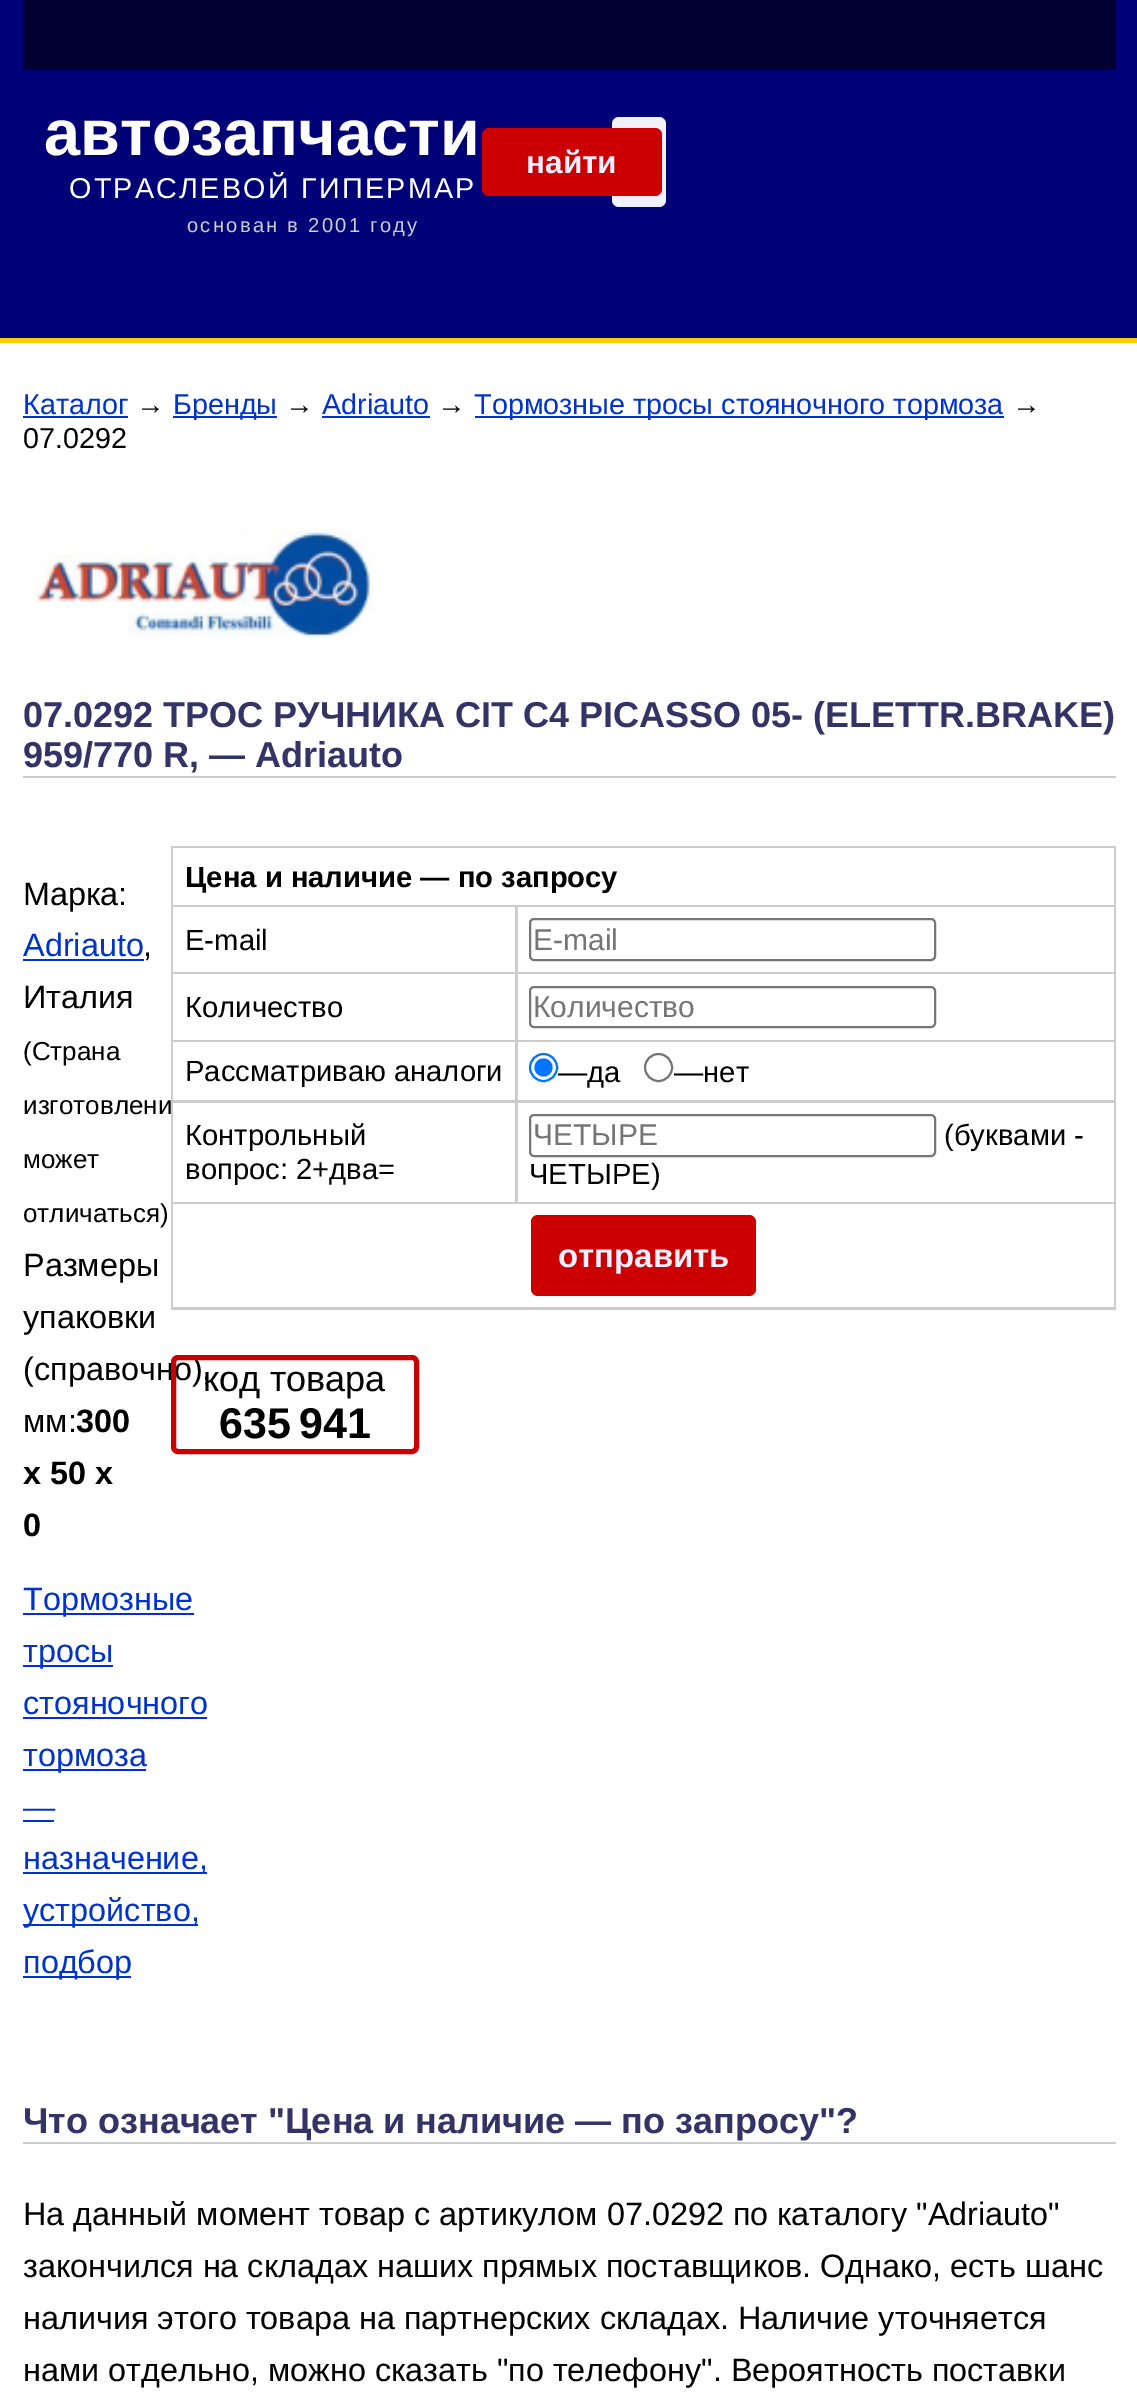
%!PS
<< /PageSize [1137 2404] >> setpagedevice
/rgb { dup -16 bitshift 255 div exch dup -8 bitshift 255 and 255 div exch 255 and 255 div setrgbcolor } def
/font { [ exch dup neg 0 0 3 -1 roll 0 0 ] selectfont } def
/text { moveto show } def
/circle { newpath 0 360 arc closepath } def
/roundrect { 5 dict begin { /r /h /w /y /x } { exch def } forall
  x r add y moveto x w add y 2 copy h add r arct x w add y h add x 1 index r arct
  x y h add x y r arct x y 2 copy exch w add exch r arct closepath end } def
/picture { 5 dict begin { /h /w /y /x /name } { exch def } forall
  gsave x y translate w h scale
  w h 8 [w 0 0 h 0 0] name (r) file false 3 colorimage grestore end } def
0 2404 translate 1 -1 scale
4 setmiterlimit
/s1 { /LiberationSans-Bold 64.75 font 16#FFFFFF rgb } def
/s2 { /LiberationSans-Bold 31.5 font 16#F0F0FF rgb } def
/s3 { /LiberationSans-Regular 28.75 font 16#0033CC rgb } def
/s4 { /LiberationSans-Regular 28.75 font 16#000000 rgb } def
/s5 { /LiberationSans-Bold 36 font 16#333366 rgb } def
/s6 { /LiberationSans-Regular 32.4 font 16#000000 rgb } def
/s7 { /LiberationSans-Regular 32.4 font 16#0033CC rgb } def
/s8 { /LiberationSans-Regular 26 font 16#000000 rgb } def
/s9 { /LiberationSans-Bold 32.4 font 16#000000 rgb } def
/s10 { /LiberationSans-Bold 29.2 font 16#000000 rgb } def
/s11 { /LiberationSans-Regular 29.2 font 16#000000 rgb } def
/s12 { /LiberationSans-Regular 30 font 16#757575 rgb } def
/s13 { /LiberationSans-Bold 33 font 16#F0F0FF rgb } def
/s14 { /LiberationSans-Regular 36 font 16#000000 rgb } def
16#FFFFFF rgb
0 0 1137 2404 rectfill
16#000077 rgb
0 0 1137 338 rectfill
16#FFCC00 rgb
0 338 1137 5 rectfill
16#000033 rgb
23 0 1093 70 rectfill
s1
(автозапчасти) 44 155 text
/LiberationSans-Regular 28.75 font
69 198 moveto 2.25 0 (ОТРАСЛЕВОЙ ГИПЕРМАР) ashow
/LiberationSans-Regular 20.2 font
16#CCCCCC rgb
187 232 moveto 2.25 0 (основан в 2001 году) ashow
16#F0F0FF rgb
612 117 54 90 7 roundrect fill
16#CC0000 rgb
482 128 180 68 7 roundrect fill
s2
(найти) 526 173 text
s3
(Каталог) 23 414 text
23 416 105 2 rectfill
s4
(→) 136 414 text
16#0033CC rgb
173 416 104 2 rectfill
(Бренды) 173 414 text
s4
(→) 285 414 text
s3
(Adriauto) 322 414 text
322 416 108 2 rectfill
s4
(→) 437 414 text
16#0033CC rgb
475 416 529 2 rectfill
(Тормозные тросы стояночного тормоза) 474 414 text
s4
(→) 1012 414 text
(07.0292) 23 448 text
(pic1.raw) 34 529 341 109 picture
16#CCCCCC rgb
23 776 1093 2 rectfill
s5
(07.0292 ТРОС РУЧНИКА CIT C4 PICASSO 05- \(ELETTR.BRAKE\)) 23 727 text
(959/770 R, — Adriauto) 23 767 text
s6
(Марка:) 23 905 text
s7
(Adriauto) 23 956 text
23 959 121 2 rectfill
s6
(,) 143 956 text
(Италия) 23 1008 text
s8
(\(Страна) 23 1060 text
(изготовлени) 23 1114 text
(может) 23 1168 text
(отличаться\)) 23 1222 text
s6
(Размеры) 23 1276 text
(упаковки) 23 1328 text
(\(справочно\),) 23 1380 text
(мм:) 23 1432 text
s9
(300) 76 1432 text
(x 50 x) 23 1484 text
(0) 23 1536 text
16#0033CC rgb
23 1613 171 2 rectfill
s7
(Тормозные) 23 1610 text
23 1665 90 2 rectfill
(тросы) 23 1662 text
(стояночного) 23 1714 text
23 1717 184 2 rectfill
23 1769 123 2 rectfill
(тормоза) 23 1766 text
gsave
23 342 1093 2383 rectclip
(—) 23 1818 text
grestore
23 1820 31 2 rectfill
23 1872 184 2 rectfill
(назначение,) 23 1869 text
23 1924 175 2 rectfill
(устройство,) 23 1921 text
23 1976 108 2 rectfill
(подбор) 23 1973 text
16#CCCCCC rgb
171 846 945 464 rectfill
16#FFFFFF rgb
173 848 941 57 rectfill
s10
(Цена и наличие — по запросу) 185 887 text
16#FFFFFF rgb
173 907 342 65 rectfill
s11
(E-mail) 185 950 text
16#FFFFFF rgb
518 907 596 65 rectfill
16#767676 rgb
2 setlinewidth
530 919 405 41 4 roundrect stroke
s12
(E-mail) 533 950 text
16#FFFFFF rgb
173 974 342 66 rectfill
s11
(Количество) 185 1017 text
16#FFFFFF rgb
518 974 596 66 rectfill
16#767676 rgb
530 987 405 40 4 roundrect stroke
s12
(Количество) 533 1017 text
16#FFFFFF rgb
173 1042 342 58 rectfill
s11
(Рассматриваю аналоги) 185 1081 text
16#FFFFFF rgb
518 1042 596 58 rectfill
16#0075FF rgb
543.5 1067.5 13.5 circle stroke
543.5 1067.5 9 circle fill
s11
(—да) 558 1082 text
16#767676 rgb
658.5 1067.5 13.5 circle stroke
s11
(—нет) 674 1082 text
16#FFFFFF rgb
173 1103 342 99 rectfill
s11
(Контрольный) 185 1145 text
(вопрос: 2+два=) 185 1179 text
16#FFFFFF rgb
518 1103 596 99 rectfill
16#767676 rgb
530 1115 405 41 4 roundrect stroke
s12
(ЧЕТЫРЕ) 533 1145 text
s11
(\(буквами -) 944 1145 text
(ЧЕТЫРЕ\)) 529 1184 text
16#FFFFFF rgb
173 1204 941 103 rectfill
16#CC0000 rgb
531 1215 225 81 7 roundrect fill
s13
(отправить) 558 1267 text
16#CC0000 rgb
5 setlinewidth
173.5 1357.5 243 94 4.5 roundrect stroke
s14
(код товара) 203 1391 text
/LiberationSans-Bold 43 font
219 1438 moveto -4 0 32 (635 941) widthshow
16#CCCCCC rgb
23 2142 1093 2 rectfill
s5
(Что означает "Цена и наличие — по запросу"?) 23 2133 text
s6
(На данный момент товар с артикулом 07.0292 по каталогу "Adriauto") 23 2225 text
(закончился на складах наших прямых поставщиков. Однако, есть шанс) 23 2277 text
(наличия этого товара на партнерских складах. Наличие уточняется) 23 2329 text
(нами отдельно, можно сказать "по телефону". Вероятность поставки) 23 2381 text
showpage
